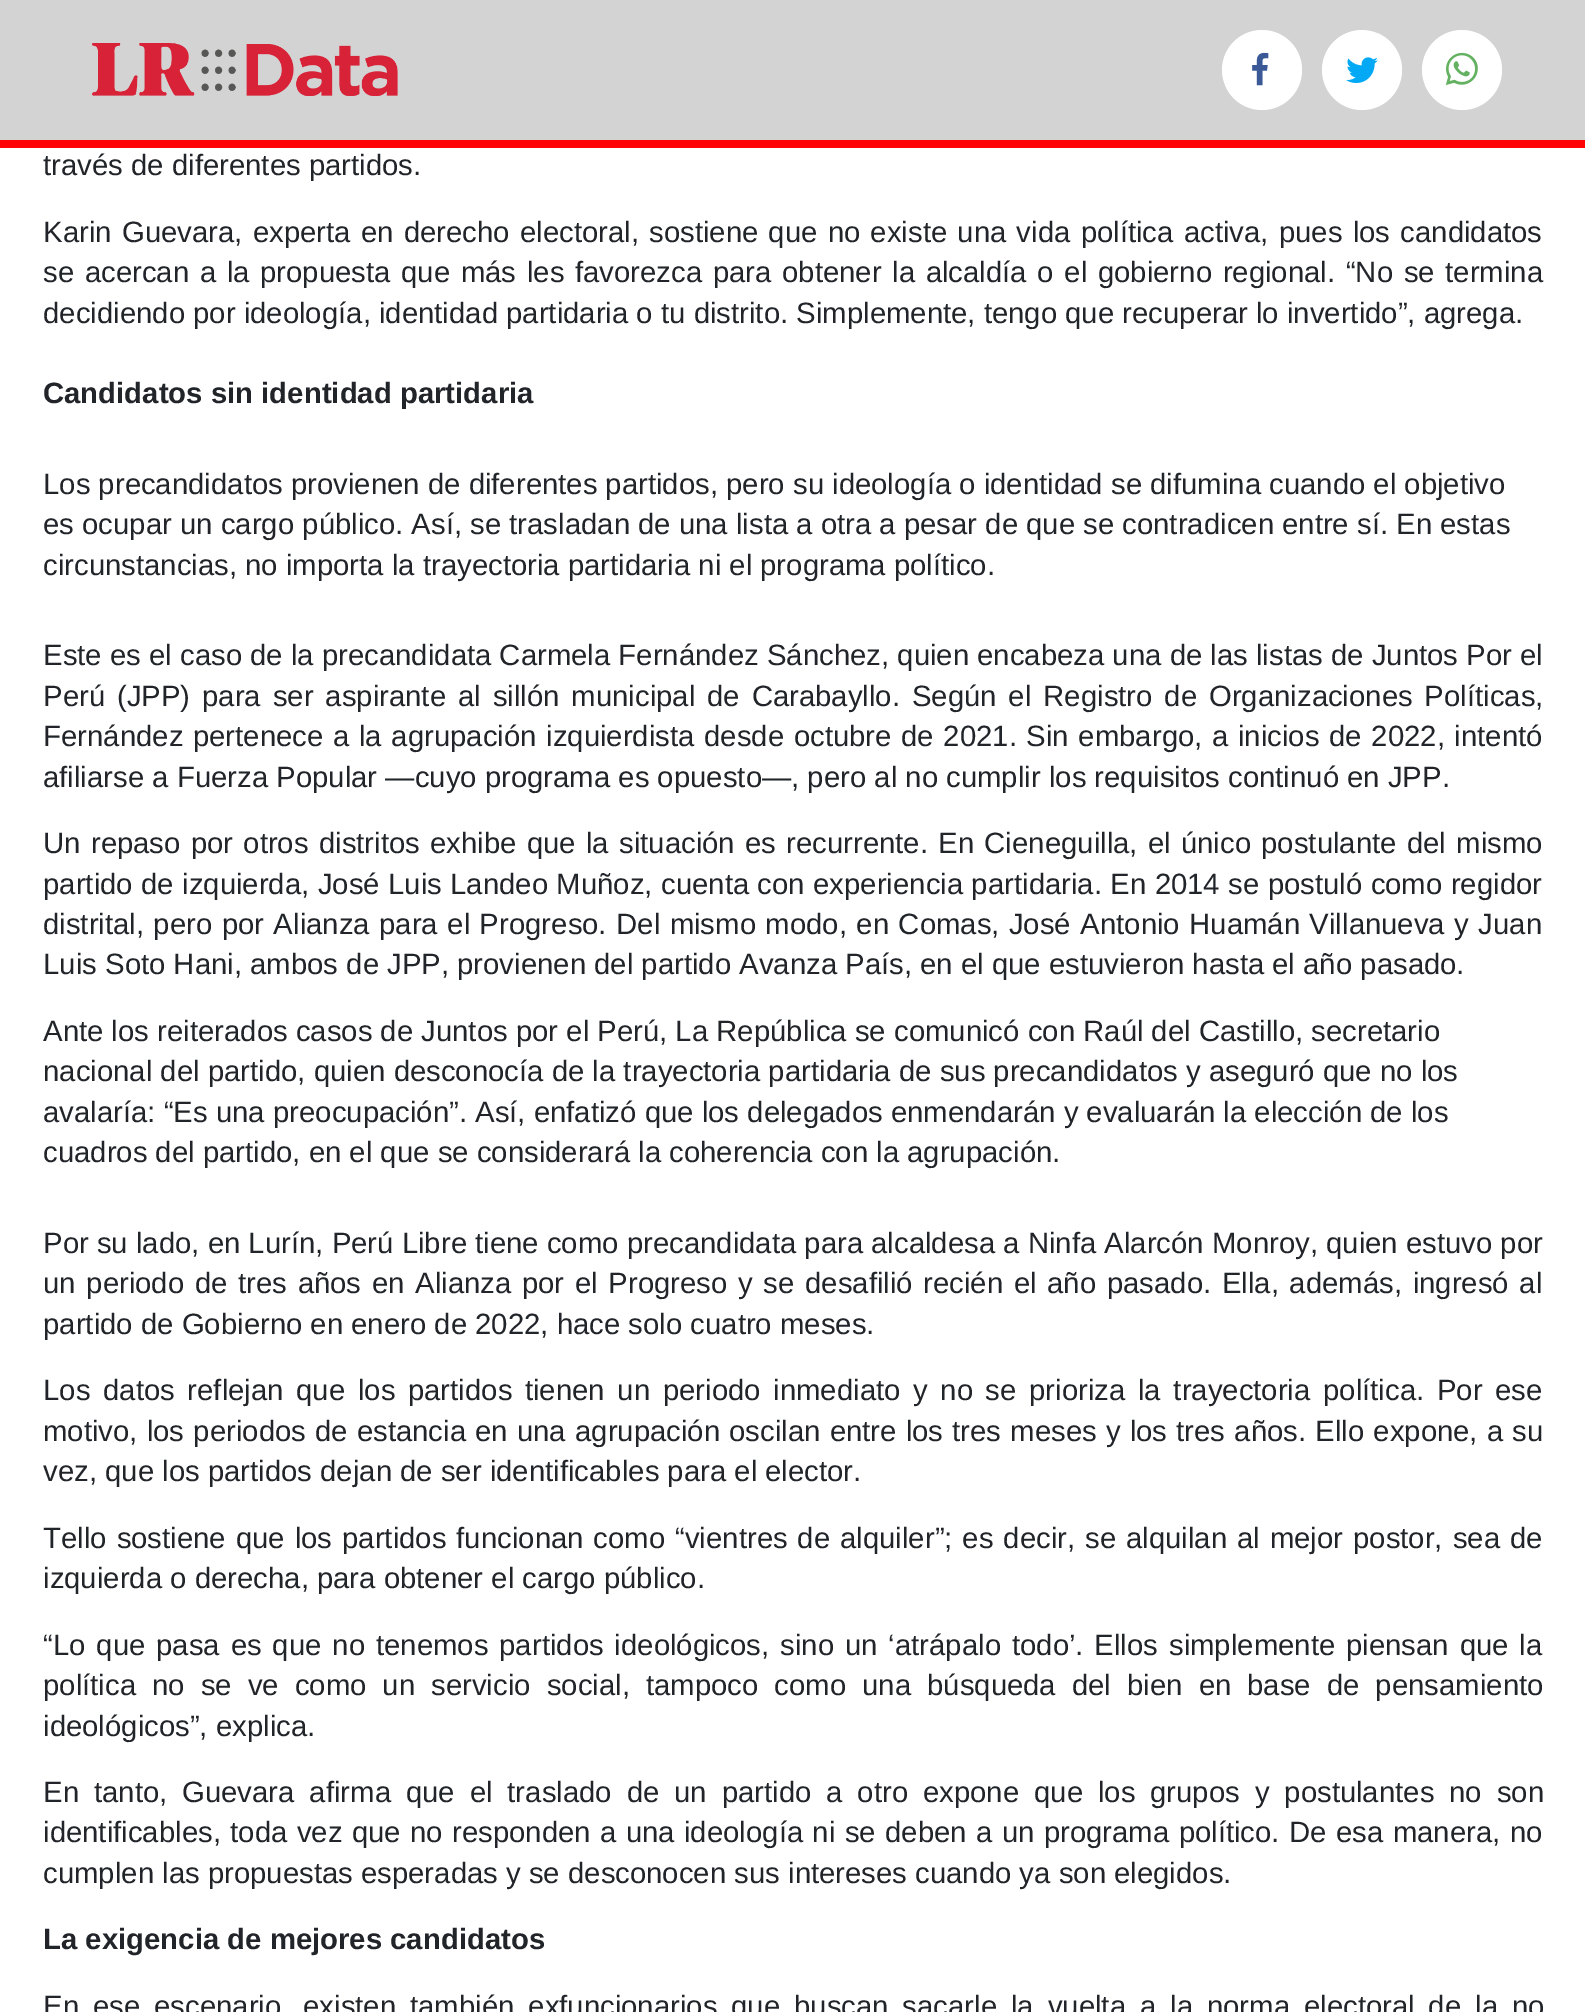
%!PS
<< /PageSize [1585 2012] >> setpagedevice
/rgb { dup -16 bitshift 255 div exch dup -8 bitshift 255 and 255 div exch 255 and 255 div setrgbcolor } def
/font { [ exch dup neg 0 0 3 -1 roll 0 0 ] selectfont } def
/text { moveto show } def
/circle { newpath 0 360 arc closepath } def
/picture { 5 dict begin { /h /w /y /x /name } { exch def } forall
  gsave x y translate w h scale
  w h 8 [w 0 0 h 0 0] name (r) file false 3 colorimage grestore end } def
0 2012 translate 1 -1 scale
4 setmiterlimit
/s1 { /LiberationSans-Regular 29.33 font 16#212529 rgb } def
/s2 { /LiberationSans-Bold 29.33 font 16#212529 rgb } def
16#FFFFFF rgb
0 0 1585 2012 rectfill
16#D3D3D3 rgb
0 0 1585 140 rectfill
16#FE0404 rgb
0 140 1585 8 rectfill
(pic1.raw) 92 43 306 53 picture
16#FFFFFF rgb
1262 70 40 circle fill
(pic2.raw) 1222 30 47 56 picture
1362 70 40 circle fill
(pic3.raw) 1322 30 56 53 picture
1462 70 40 circle fill
(pic4.raw) 1422 30 56 55 picture
s1
(través de diferentes partidos.) 43 175 text
43 242 moveto 2.1 0 32 (Karin Guevara, experta en derecho electoral, sostiene que no existe una vida política activa, pues los candidatos) widthshow
43 282 moveto 2.5 0 32 (se acercan a la propuesta que más les favorezca para obtener la alcaldía o el gobierno regional. “No se termina) widthshow
(decidiendo por ideología, identidad partidaria o tu distrito. Simplemente, tengo que recuperar lo invertido”, agrega.) 43 323 text
s2
(Candidatos sin identidad partidaria) 43 403 text
s1
(Los precandidatos provienen de diferentes partidos, pero su ideología o identidad se difumina cuando el objetivo) 43 494 text
(es ocupar un cargo público. Así, se trasladan de una lista a otra a pesar de que se contradicen entre sí. En estas) 43 534 text
(circunstancias, no importa la trayectoria partidaria ni el programa político.) 43 575 text
(Este es el caso de la precandidata Carmela Fernández Sánchez, quien encabeza una de las listas de Juntos Por el) 43 665 text
43 706 moveto 3.75 0 32 (Perú \(JPP\) para ser aspirante al sillón municipal de Carabayllo. Según el Registro de Organizaciones Políticas,) widthshow
43 746 moveto 1.5 0 32 (Fernández pertenece a la agrupación izquierdista desde octubre de 2021. Sin embargo, a inicios de 2022, intentó) widthshow
(afiliarse a Fuerza Popular —cuyo programa es opuesto—, pero al no cumplir los requisitos continuó en JPP.) 43 787 text
43 853 moveto 2.1 0 32 (Un repaso por otros distritos exhibe que la situación es recurrente. En Cieneguilla, el único postulante del mismo) widthshow
43 894 moveto 0.25 0 32 (partido de izquierda, José Luis Landeo Muñoz, cuenta con experiencia partidaria. En 2014 se postuló como regidor) widthshow
43 934 moveto 1.3 0 32 (distrital, pero por Alianza para el Progreso. Del mismo modo, en Comas, José Antonio Huamán Villanueva y Juan) widthshow
(Luis Soto Hani, ambos de JPP, provienen del partido Avanza País, en el que estuvieron hasta el año pasado.) 43 974 text
(Ante los reiterados casos de Juntos por el Perú, La República se comunicó con Raúl del Castillo, secretario) 43 1041 text
(nacional del partido, quien desconocía de la trayectoria partidaria de sus precandidatos y aseguró que no los) 43 1081 text
(avalaría: “Es una preocupación”. Así, enfatizó que los delegados enmendarán y evaluarán la elección de los) 43 1122 text
(cuadros del partido, en el que se considerará la coherencia con la agrupación.) 43 1162 text
(Por su lado, en Lurín, Perú Libre tiene como precandidata para alcaldesa a Ninfa Alarcón Monroy, quien estuvo por) 43 1253 text
43 1293 moveto 2.5 0 32 (un periodo de tres años en Alianza por el Progreso y se desafilió recién el año pasado. Ella, además, ingresó al) widthshow
(partido de Gobierno en enero de 2022, hace solo cuatro meses.) 43 1334 text
43 1400 moveto 4.5 0 32 (Los datos reflejan que los partidos tienen un periodo inmediato y no se prioriza la trayectoria política. Por ese) widthshow
43 1441 moveto 1 0 32 (motivo, los periodos de estancia en una agrupación oscilan entre los tres meses y los tres años. Ello expone, a su) widthshow
(vez, que los partidos dejan de ser identificables para el elector.) 43 1481 text
43 1548 moveto 1.8 0 32 (Tello sostiene que los partidos funcionan como “vientres de alquiler”; es decir, se alquilan al mejor postor, sea de) widthshow
(izquierda o derecha, para obtener el cargo público.) 43 1588 text
43 1655 moveto 2.75 0 32 (“Lo que pasa es que no tenemos partidos ideológicos, sino un ‘atrápalo todo’. Ellos simplemente piensan que la) widthshow
43 1695 moveto 7.9 0 32 (política no se ve como un servicio social, tampoco como una búsqueda del bien en base de pensamiento) widthshow
(ideológicos”, explica.) 43 1736 text
43 1802 moveto 6.75 0 32 (En tanto, Guevara afirma que el traslado de un partido a otro expone que los grupos y postulantes no son) widthshow
43 1842 moveto 1.25 0 32 (identificables, toda vez que no responden a una ideología ni se deben a un programa político. De esa manera, no) widthshow
(cumplen las propuestas esperadas y se desconocen sus intereses cuando ya son elegidos.) 43 1883 text
s2
(La exigencia de mejores candidatos) 43 1949 text
/LiberationSans-Regular 29.33 font
43 2016 moveto 5.75 0 32 (En ese escenario, existen también exfuncionarios que buscan sacarle la vuelta a la norma electoral de la no) widthshow
showpage
